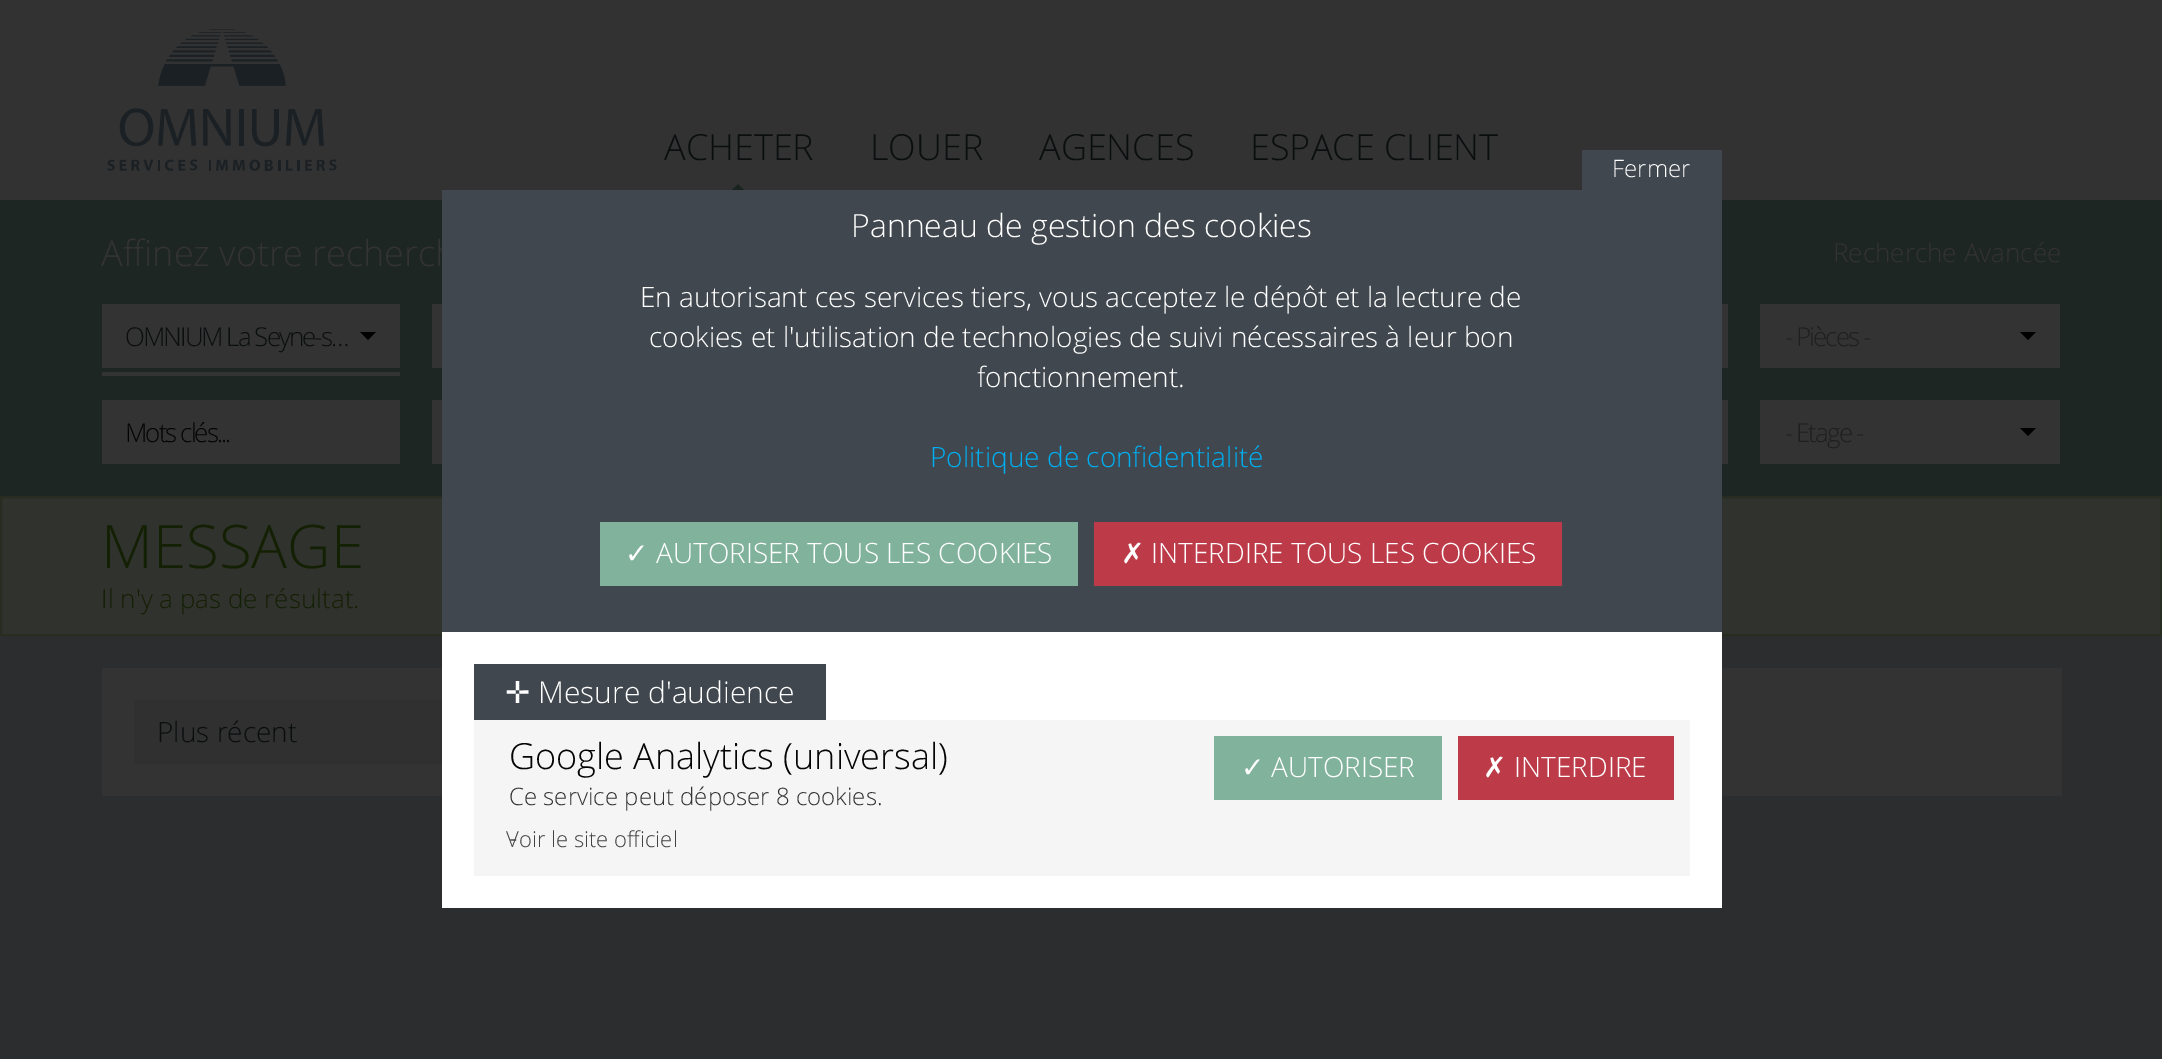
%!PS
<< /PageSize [2162 1059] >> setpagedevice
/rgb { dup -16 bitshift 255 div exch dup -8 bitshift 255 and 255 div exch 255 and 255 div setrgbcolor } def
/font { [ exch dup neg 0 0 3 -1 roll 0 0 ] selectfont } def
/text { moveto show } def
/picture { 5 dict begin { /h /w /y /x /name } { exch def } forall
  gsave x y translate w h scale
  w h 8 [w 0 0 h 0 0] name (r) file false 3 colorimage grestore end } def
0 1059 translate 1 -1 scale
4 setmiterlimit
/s1 { /OpenSans-Light 36 font 16#0B0E0F rgb } def
/s2 { /OpenSans-Light 36 font 16#333333 rgb } def
/s3 { /OpenSans-Light 26 font 16#333333 rgb } def
/s4 { /OpenSans-Light 60 font 16#142004 rgb } def
/s5 { /OpenSans-Light 26 font 16#142004 rgb } def
/s6 { /OpenSans-Light 28 font 16#0B0E0F rgb } def
/s7 { /OpenSans-Light 24 font 16#FFFFFF rgb } def
/s8 { /OpenSans-Light 32 font 16#FFFFFF rgb } def
/s9 { /OpenSans-Light 28 font 16#FFFFFF rgb } def
/s10 { /OpenSans-Light 28 font 16#00ADEF rgb } def
/s11 { /DejaVuSans-Regular 28 font 16#FFFFFF rgb } def
/s12 { /DejaVuSans-Regular 30 font 16#FFFFFF rgb } def
/s13 { /OpenSans-Light 30 font 16#FFFFFF rgb } def
/s14 { /OpenSans-Light 36 font 16#040405 rgb } def
/s15 { /OpenSans-Light 24 font 16#333333 rgb } def
/s16 { /OpenSans-Light 26 font 16#040405 rgb } def
/s17 { /OpenSans-Light 22 font 16#424242 rgb } def
16#2C2D2E rgb
0 0 2162 1059 rectfill
16#323232 rgb
0 0 2162 200 rectfill
(pic1.raw) 107 29 230 142 picture
s1
(ACHETER) 664 160 text
16#1A241F rgb
754 200 moveto 722 200 lineto 738 184 lineto closepath fill
s1
(LOUER) 870 160 text
(AGENCES) 1039 160 text
(ESPACE CLIENT) 1250 160 text
16#1E2623 rgb
0 200 2162 296 rectfill
s2
(Affinez votre recherch) 101 266 text
s3
(Recherche Avancée) 1833 262 text
102 304 298 64 rectfill
16#0B0E0F rgb
125 346 moveto -2 0 (OMNIUM La Seyne-s…) ashow
16#000000 rgb
360 332 moveto 376 332 lineto 368 340 lineto closepath fill
16#333333 rgb
102 372 298 4 rectfill
432 304 10 64 rectfill
1722 304 6 64 rectfill
1760 304 300 64 rectfill
16#1F1F1F rgb
1785 346 moveto -2 0 (- Pièces -) ashow
16#000000 rgb
2020 332 moveto 2036 332 lineto 2028 340 lineto closepath fill
16#333333 rgb
102 400 298 64 rectfill
16#040405 rgb
125 442 moveto -2 0 (Mots clés...) ashow
16#333333 rgb
432 400 10 64 rectfill
1722 400 6 64 rectfill
1760 400 300 64 rectfill
16#1F1F1F rgb
1785 442 moveto -2 0 (- Etage -) ashow
16#000000 rgb
2020 428 moveto 2036 428 lineto 2028 436 lineto closepath fill
16#30322D rgb
1 497 moveto 2161 497 lineto 2161 635 lineto 1 635 lineto closepath gsave fill grestore
16#282D21 rgb
2 setlinewidth
stroke
s4
(MESSAGE) 101 568 text
s5
(Il n'y a pas de résultat.) 101 608 text
16#333333 rgb
102 668 1960 128 rectfill
16#303030 rgb
134 700 308 64 rectfill
s6
(Plus récent) 157 742 text
16#40474E rgb
1582 150 140 40 rectfill
s7
(Fermer) 1612 177 text
16#40474E rgb
442 190 1280 442 rectfill
s8
(Panneau de gestion des cookies) 851 237 text
s9
(En autorisant ces services tiers, vous acceptez le dépôt et la lecture de) 640 307 text
(cookies et l'utilisation de technologies de suivi nécessaires à leur bon) 649 347 text
(fonctionnement.) 977 387 text
s10
(Politique de confidentialité) 930 467 text
16#80B29C rgb
600 522 478 64 rectfill
s11
(✓) 625 563 text
s9
(AUTORISER TOUS LES COOKIES) 656 563 text
16#BD3A49 rgb
1094 522 468 64 rectfill
s11
(✗) 1121 563 text
s9
(INTERDIRE TOUS LES COOKIES) 1151 563 text
442 632 1280 276 rectfill
16#40474E rgb
474 664 352 56 rectfill
s12
(✛) 505 703 text
s13
(Mesure d'audience) 538 703 text
16#F5F5F5 rgb
474 720 1216 156 rectfill
s14
(Google Analytics \(universal\)) 509 769 text
s15
(Ce service peut déposer 8 cookies.) 509 805 text
s16
(-) 509 847 text
s17
(Voir le site officiel) 506 847 text
16#80B29C rgb
1214 736 228 64 rectfill
s11
(✓) 1241 777 text
s9
(AUTORISER) 1271 777 text
16#BD3A49 rgb
1458 736 216 64 rectfill
s11
(✗) 1483 777 text
s9
(INTERDIRE) 1514 777 text
showpage
